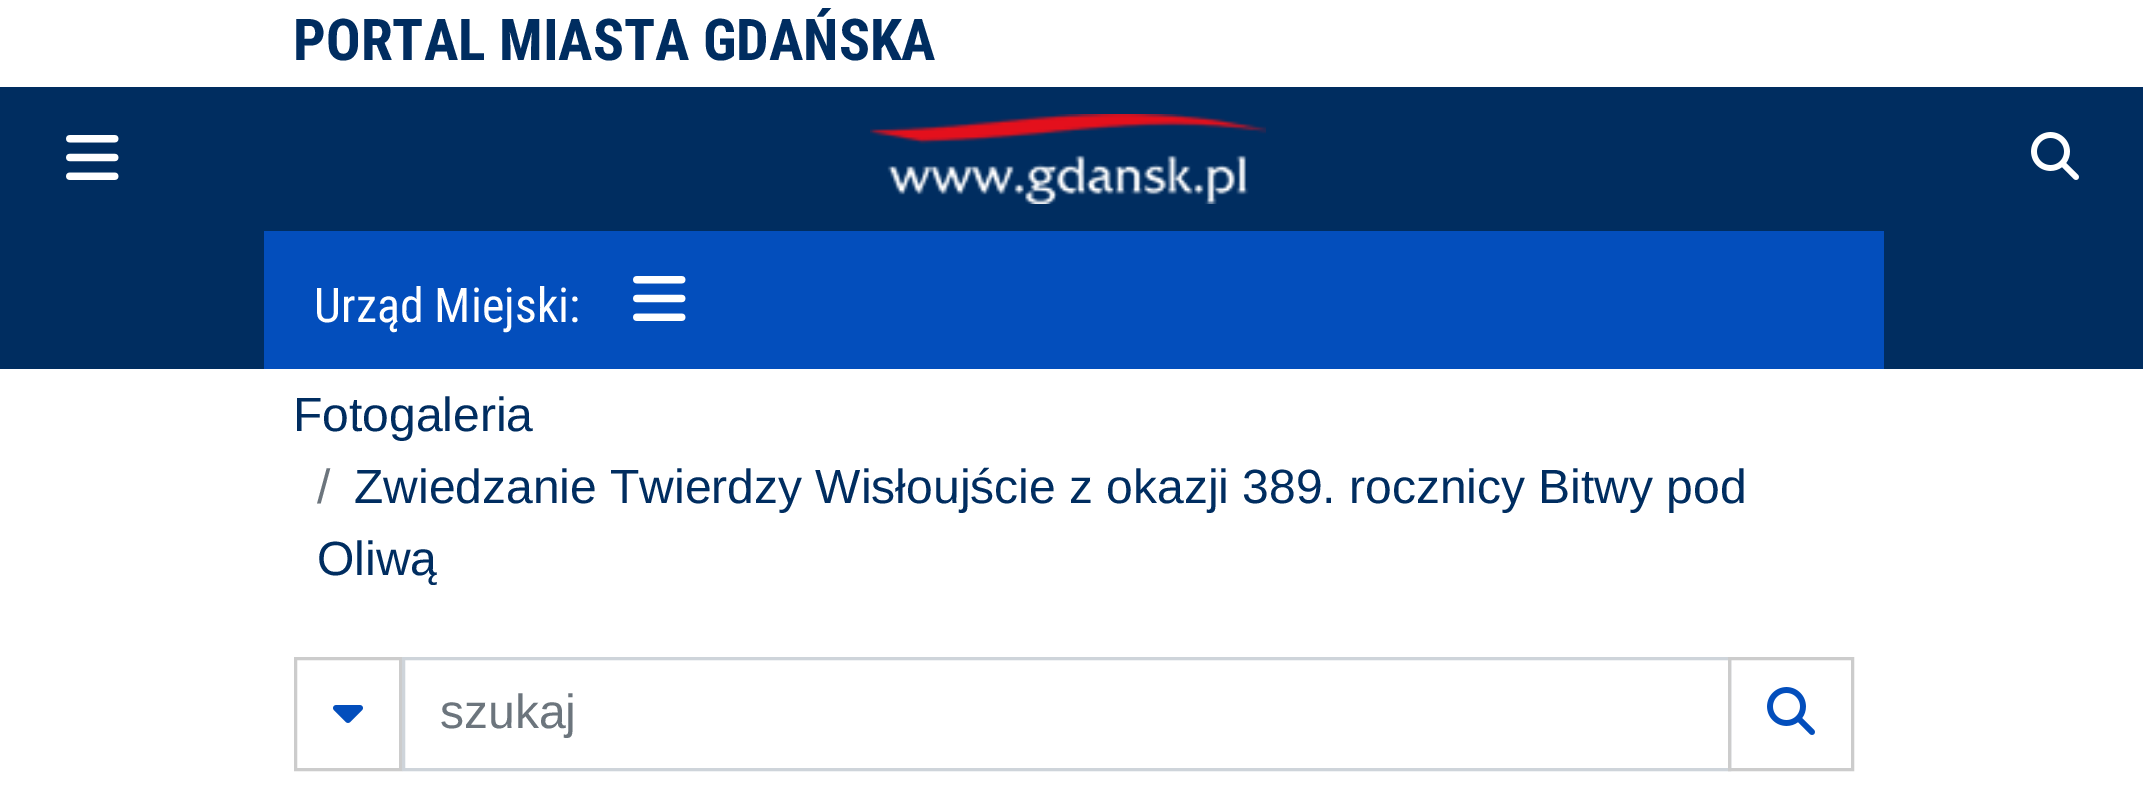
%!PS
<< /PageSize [2143 803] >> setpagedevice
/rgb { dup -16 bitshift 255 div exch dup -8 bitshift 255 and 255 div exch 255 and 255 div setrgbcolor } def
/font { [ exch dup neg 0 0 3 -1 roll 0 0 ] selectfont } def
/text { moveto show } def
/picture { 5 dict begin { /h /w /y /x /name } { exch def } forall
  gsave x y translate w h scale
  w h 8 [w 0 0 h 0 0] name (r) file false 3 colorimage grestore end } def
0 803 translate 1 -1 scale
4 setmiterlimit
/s1 { /RobotoCondensed-Bold 57.6 font 16#002D60 rgb } def
/s2 { /RobotoCondensed-Regular 48 font 16#FFFFFF rgb } def
/s3 { /LiberationSans-Regular 48 font 16#002D60 rgb } def
/s4 { /LiberationSans-Regular 48 font 16#6C757D rgb } def
16#FFFFFF rgb
0 0 2143 803 rectfill
s1
(PORTAL MIASTA GDAŃSKA) 293 60 text
0 87 2143 282 rectfill
(pic1.raw) 66 135 53 45 picture
(pic2.raw) 870 114 396 90 picture
(pic3.raw) 2031 132 48 48 picture
16#034EBC rgb
264 231 1620 138 rectfill
s2
(Urząd Miejski:) 314 322 text
(pic4.raw) 633 276 53 45 picture
s3
(Fotogaleria) 293 431 text
s4
(/) 317 503 text
s3
(Zwiedzanie Twierdzy Wisłoujście z okazji 389. rocznicy Bitwy pod) 354 503 text
(Oliwą) 317 575 text
16#CCCCCC rgb
3 setlinewidth
295.5 658.5 105 111 rectstroke
(pic5.raw) 333 705 30 18 picture
16#CED4DA rgb
403.5 658.5 1326 111 rectstroke
s4
(szukaj) 440 728 text
16#CCCCCC rgb
1729.5 658.5 123 111 rectstroke
(pic6.raw) 1767 687 48 48 picture
showpage
